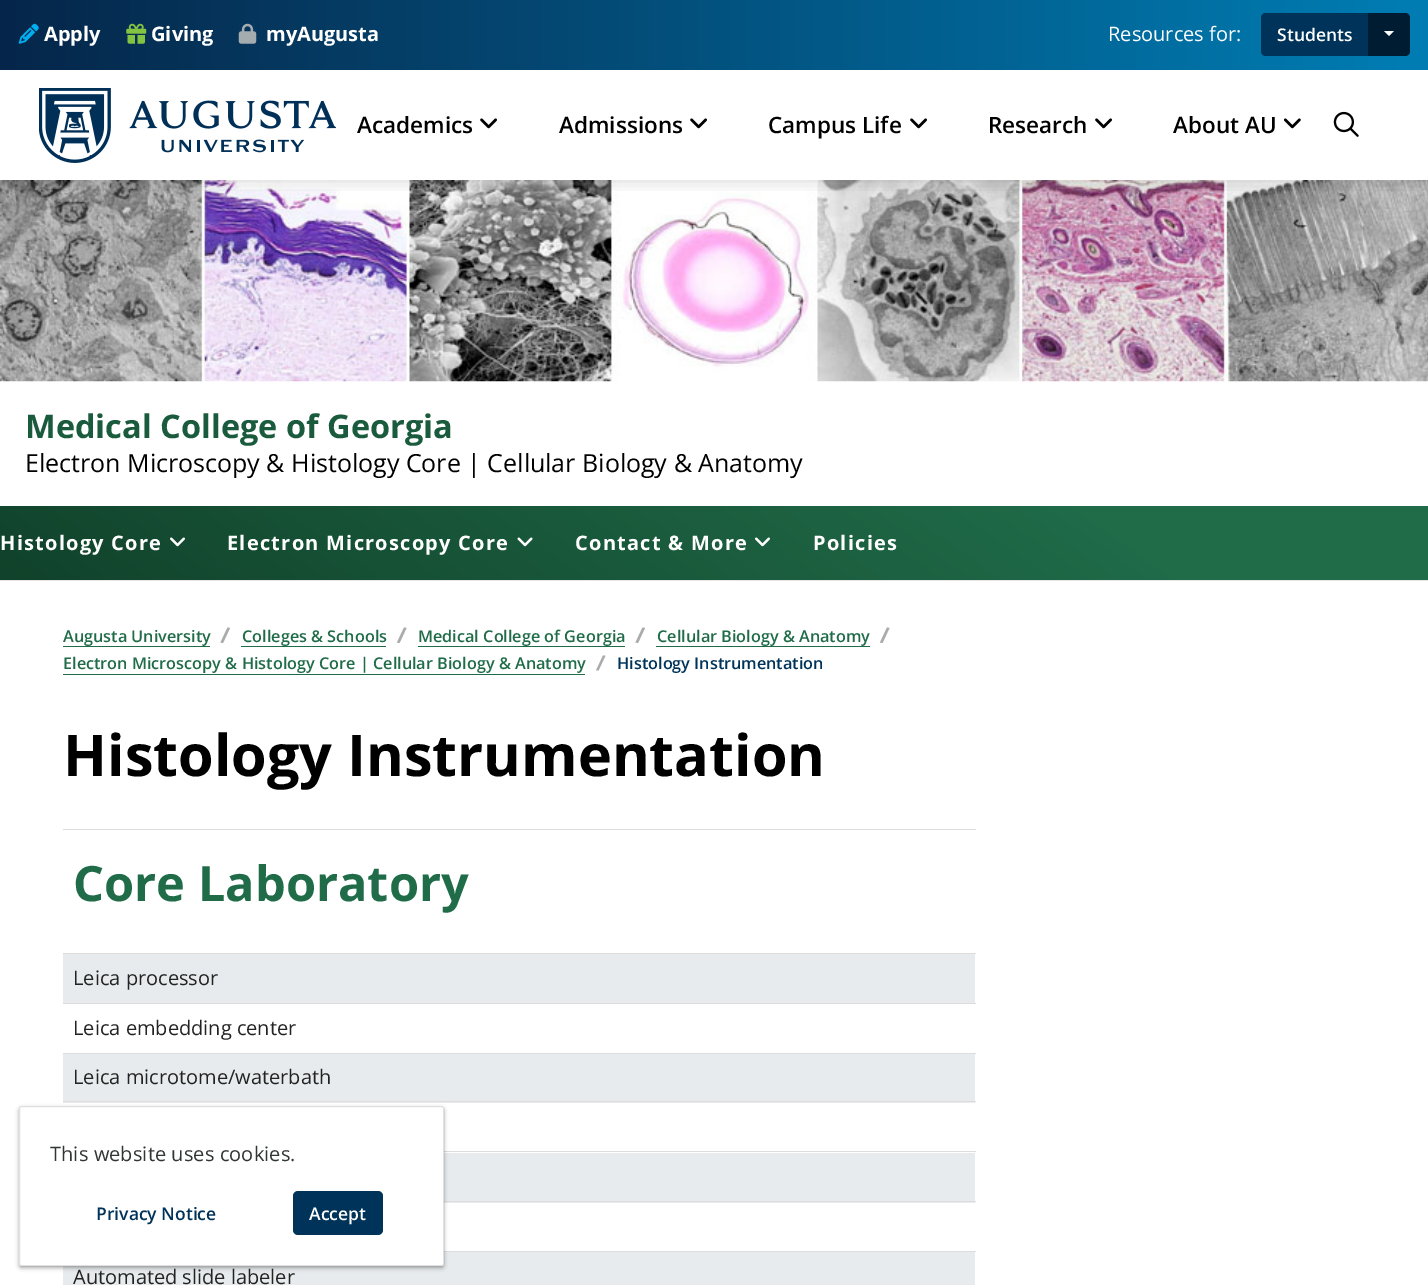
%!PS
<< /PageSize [1428 1285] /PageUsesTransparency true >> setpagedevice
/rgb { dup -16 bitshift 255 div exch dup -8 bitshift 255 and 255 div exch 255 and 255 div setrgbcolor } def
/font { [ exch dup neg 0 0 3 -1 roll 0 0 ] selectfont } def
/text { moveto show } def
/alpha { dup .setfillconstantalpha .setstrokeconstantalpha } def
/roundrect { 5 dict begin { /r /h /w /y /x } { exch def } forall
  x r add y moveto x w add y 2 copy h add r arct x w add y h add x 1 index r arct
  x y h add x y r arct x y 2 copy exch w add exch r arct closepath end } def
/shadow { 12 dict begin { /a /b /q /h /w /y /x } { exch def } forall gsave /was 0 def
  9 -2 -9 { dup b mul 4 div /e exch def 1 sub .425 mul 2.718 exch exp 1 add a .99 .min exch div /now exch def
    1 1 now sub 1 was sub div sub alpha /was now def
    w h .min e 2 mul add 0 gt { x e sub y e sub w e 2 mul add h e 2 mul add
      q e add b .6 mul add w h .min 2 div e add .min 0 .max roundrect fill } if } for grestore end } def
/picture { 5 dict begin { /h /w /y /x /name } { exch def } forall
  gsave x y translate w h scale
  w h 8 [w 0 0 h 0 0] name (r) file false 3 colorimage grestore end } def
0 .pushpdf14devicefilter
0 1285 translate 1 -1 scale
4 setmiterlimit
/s1 { /OpenSans-Bold 20 font 16#FFFFFF rgb } def
/s2 { /OpenSans-Regular 20 font 16#FFFFFF rgb } def
/s3 { /OpenSans-SemiBold 17.5 font 16#FFFFFF rgb } def
/s4 { /OpenSans-SemiBold 22.5 font 16#000000 rgb } def
/s5 { /OpenSans-Bold 32.5 font 16#1A5A3D rgb } def
/s6 { /OpenSans-Regular 25 font 16#000000 rgb } def
/s7 { /OpenSans-SemiBold 16.25 font 16#206C49 rgb } def
/s8 { /OpenSans-SemiBold 16.25 font 16#003359 rgb } def
/s9 { /OpenSans-Bold 57.5 font 16#000000 rgb } def
/s10 { /OpenSans-Bold 48.75 font 16#206C49 rgb } def
/s11 { /OpenSans-Regular 20 font 16#232323 rgb } def
/s12 { /OpenSans-SemiBold 17.5 font 16#003359 rgb } def
16#FFFFFF rgb
0 0 1428 1285 rectfill
(pic8.raw) 0 180 1428 202 picture
gsave
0 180 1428 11 rectclip
16#000000 rgb
0 70 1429 110 0 9.5 0.17 shadow
grestore
gsave 0 0 moveto 1428 0 lineto 1428 70 lineto 0 70 lineto closepath clip newpath
<< /ShadingType 2 /ColorSpace /DeviceRGB /Coords [0 35 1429 35] /Extend [true true] /Function << /FunctionType 3 /Domain [0 1] /Functions [<< /FunctionType 2 /Domain [0 1] /C0 [0.024 0.149 0.29] /C1 [0 0.486 0.698] /N 1 >> << /FunctionType 2 /Domain [0 1] /C0 [0 0.486 0.698] /C1 [0 0.486 0.698] /N 1 >>] /Bounds [0.98] /Encode [0 1 0 1] >> >> shfill grestore
(pic1.raw) 18 23 21 21 picture
s1
(Apply) 44 41 text
(pic2.raw) 126 23 21 21 picture
(Giving) 151 41 text
(pic3.raw) 238 23 19 21 picture
(myAugusta) 266 41 text
s2
(Resources for:) 1108 41 text
16#003359 rgb
1266 13 moveto 1369 13 lineto 1369 56 lineto 1266 56 lineto 1263 56 1261 54 1261 51 curveto 1261 18 lineto 1261 15 1263 13 1266 13 curveto closepath fill
s3
(Students) 1277 41 text
16#001C33 rgb
1368 13 moveto 1405 13 lineto 1408 13 1410 15 1410 18 curveto 1410 51 lineto 1410 54 1408 56 1405 56 curveto 1368 56 lineto closepath fill
16#FFFFFF rgb
1384 31 moveto 1394 31 lineto 1389 36 lineto closepath fill
(pic4.raw) 39 88 297 75 picture
s4
(Academics) 357 133 text
(pic5.raw) 480 118 17 11 picture
(Admissions) 559 133 text
(pic5.raw) 690 118 17 11 picture
(Campus Life) 768 133 text
(pic5.raw) 910 118 17 11 picture
(Research) 988 133 text
(pic5.raw) 1095 118 17 11 picture
(About AU) 1173 133 text
(pic6.raw) 1283 118 18 11 picture
(pic7.raw) 1333 111 26 26 picture
s5
(Medical College of Georgia) 25 438 text
s6
(Electron Microscopy & Histology Core | Cellular Biology & Anatomy) 25 472 text
16#E6E6E6 rgb
0 580 moveto 0 581 lineto 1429 581 lineto 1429 508 lineto 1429 580 lineto closepath fill
gsave 0 506 moveto 1428 506 lineto 1428 580 lineto 0 580 lineto closepath clip newpath
<< /ShadingType 2 /ColorSpace /DeviceRGB /Coords [967 183 462 904] /Extend [true true] /Function << /FunctionType 3 /Domain [0 1] /Functions [<< /FunctionType 2 /Domain [0 1] /C0 [0.125 0.424 0.286] /C1 [0.125 0.424 0.286] /N 1 >> << /FunctionType 2 /Domain [0 1] /C0 [0.125 0.424 0.286] /C1 [0.067 0.259 0.169] /N 1 >>] /Bounds [0.22] /Encode [0 1 0 1] >> >> shfill grestore
/OpenSans-Bold 20 font
16#FFFFFF rgb
0 550 moveto 1.25 0 (Histology Core) ashow
(pic9.raw) 170 537 15 10 picture
227 550 moveto 1.25 0 (Electron Microscopy Core) ashow
(pic10.raw) 517 537 16 10 picture
575 550 moveto 1.25 0 (Contact & More) ashow
(pic11.raw) 755 537 15 10 picture
813 550 moveto 1.25 0 (Policies) ashow
s7
(Augusta University) 63 642 text
63 646 147 1 rectfill
16#ABABAB rgb
227.5 627.5 moveto 230 628 lineto 223 643 lineto 220.5 642.5 lineto closepath fill
s7
(Colleges & Schools) 242 642 text
241 646 145 1 rectfill
16#ABABAB rgb
404 627.5 moveto 406.5 628 lineto 399.5 643 lineto 397 642.5 lineto closepath fill
s7
(Medical College of Georgia) 418 642 text
418 646 207 1 rectfill
16#ABABAB rgb
642.5 627.5 moveto 645 628 lineto 638 643 lineto 635.5 642.5 lineto closepath fill
s7
(Cellular Biology & Anatomy) 657 642 text
656 646 214 1 rectfill
16#ABABAB rgb
887 627.5 moveto 889.5 628 lineto 882.5 643 lineto 880 642.5 lineto closepath fill
s7
(Electron Microscopy & Histology Core | Cellular Biology & Anatomy) 63 669 text
63 674 522 1 rectfill
16#ABABAB rgb
603 655.5 moveto 605.5 655.5 lineto 598.5 670.5 lineto 596 670.5 lineto closepath fill
s8
(Histology Instrumentation) 617 669 text
s9
(Histology Instrumentation) 63 776 text
16#DDDDDD rgb
63 829 913 1 rectfill
s10
(Core Laboratory) 73 901 text
16#E7EBED rgb
63 954 912 49 rectfill
16#DDDDDD rgb
63 953 913 1 rectfill
s11
(Leica processor) 73 985 text
16#DDDDDD rgb
63 1003 913 1 rectfill
s11
(Leica embedding center) 73 1035 text
16#E7EBED rgb
63 1054 912 49 rectfill
16#DDDDDD rgb
63 1053 913 1 rectfill
s11
(Leica microtome/waterbath) 73 1084 text
16#DDDDDD rgb
63 1101 913 1 rectfill
16#E7EBED rgb
444 1153 531 50 rectfill
16#DDDDDD rgb
444 1151 532 1 rectfill
444 1201 532 1 rectfill
16#E7EBED rgb
63 1252 912 33 rectfill
16#DDDDDD rgb
444 1251 532 1 rectfill
s11
(Automated slide labeler) 73 1284 text
16#000000 rgb
19 1108 425 160 2.5 2 0.33 shadow
16#FFFFFF rgb
19 1106 425 160 2.5 roundrect fill
0.12 alpha
16#000000 rgb
19.5 1106.5 424 159 2 roundrect stroke
1 alpha
16#313534 rgb
50 1161 moveto 0.1 0 (This website uses cookies.) ashow
s12
(Privacy Notice) 96 1220 text
293 1191 90 44 5 roundrect fill
s3
(Accept) 309 1220 text
.poppdf14devicefilter showpage
